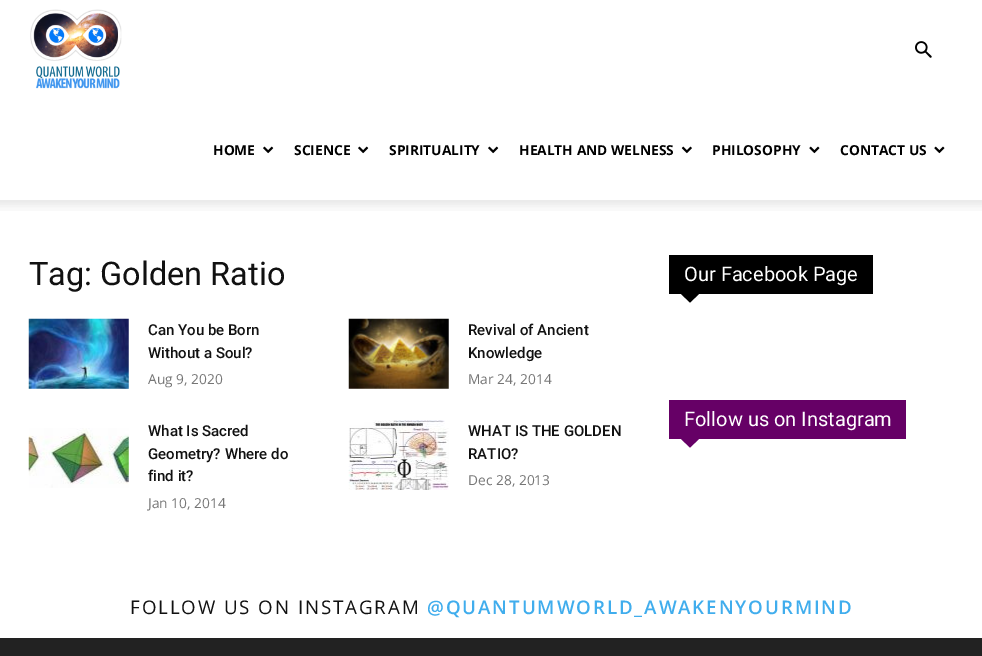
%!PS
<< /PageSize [982 656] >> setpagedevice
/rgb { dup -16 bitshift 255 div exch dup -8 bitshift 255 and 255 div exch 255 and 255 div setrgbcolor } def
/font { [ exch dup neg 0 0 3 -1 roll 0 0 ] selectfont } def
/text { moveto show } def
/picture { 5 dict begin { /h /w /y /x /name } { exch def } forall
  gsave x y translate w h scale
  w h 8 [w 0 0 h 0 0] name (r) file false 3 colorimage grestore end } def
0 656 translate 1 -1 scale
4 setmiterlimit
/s1 { /OpenSans-Bold 13.75 font 16#000000 rgb } def
/s2 { /Roboto-Regular 32.5 font 16#111111 rgb } def
/s3 { /Roboto-Medium 15 font 16#111111 rgb } def
/s4 { /OpenSans-Regular 13.75 font 16#767676 rgb } def
/s5 { /Roboto-Regular 20 font 16#FFFFFF rgb } def
16#FFFFFF rgb
0 0 982 656 rectfill
(pic1.raw) 915 41 17 17 picture
(pic2.raw) 30 9 92 80 picture
s1
(HOME) 213 155 text
(pic3.raw) 263 146 11 8 picture
(SCIENCE) 294 155 text
(pic3.raw) 358 146 11 8 picture
(SPIRITUALITY) 389 155 text
(pic3.raw) 488 146 11 8 picture
(HEALTH AND WELNESS) 519 155 text
(pic4.raw) 681 146 11 8 picture
(PHILOSOPHY) 712 155 text
(pic5.raw) 809 146 11 8 picture
(CONTACT US) 840 155 text
(pic5.raw) 934 146 11 8 picture
(pic6.raw) 0 200 982 11 picture
s2
(Tag: Golden Ratio) 29 285 text
(pic7.raw) 28 318 101 71 picture
s3
(Can You be Born) 148 335 text
(Without a Soul?) 148 358 text
s4
(Aug 9, 2020) 148 384 text
(pic8.raw) 348 318 101 71 picture
s3
(Revival of Ancient) 468 335 text
(Knowledge) 468 358 text
s4
(Mar 24, 2014) 468 384 text
(pic9.raw) 28 428 101 60 picture
s3
(What Is Sacred) 148 436 text
(Geometry? Where do) 148 459 text
(find it?) 148 481 text
s4
(Jan 10, 2014) 148 508 text
(pic10.raw) 348 420 101 70 picture
s3
(WHAT IS THE GOLDEN) 468 436 text
(RATIO?) 468 459 text
s4
(Dec 28, 2013) 468 485 text
16#000000 rgb
669 255 204 39 rectfill
s5
(Our Facebook Page) 684 281 text
16#000000 rgb
681 294 moveto 699 294 lineto 690 302.5 lineto closepath fill
16#660066 rgb
669 400 237 39 rectfill
s5
(Follow us on Instagram) 684 426 text
16#660066 rgb
681 439 moveto 699 439 lineto 690 447.5 lineto closepath fill
/OpenSans-Regular 18.75 font
16#111111 rgb
130 614 moveto 1.9 0 (FOLLOW US ON INSTAGRAM) ashow
/OpenSans-SemiBold 18.75 font
16#40ADED rgb
427 614 moveto 1.9 0 (@QUANTUMWORLD_AWAKENYOURMIND) ashow
16#222222 rgb
0 638 982 18 rectfill
showpage
